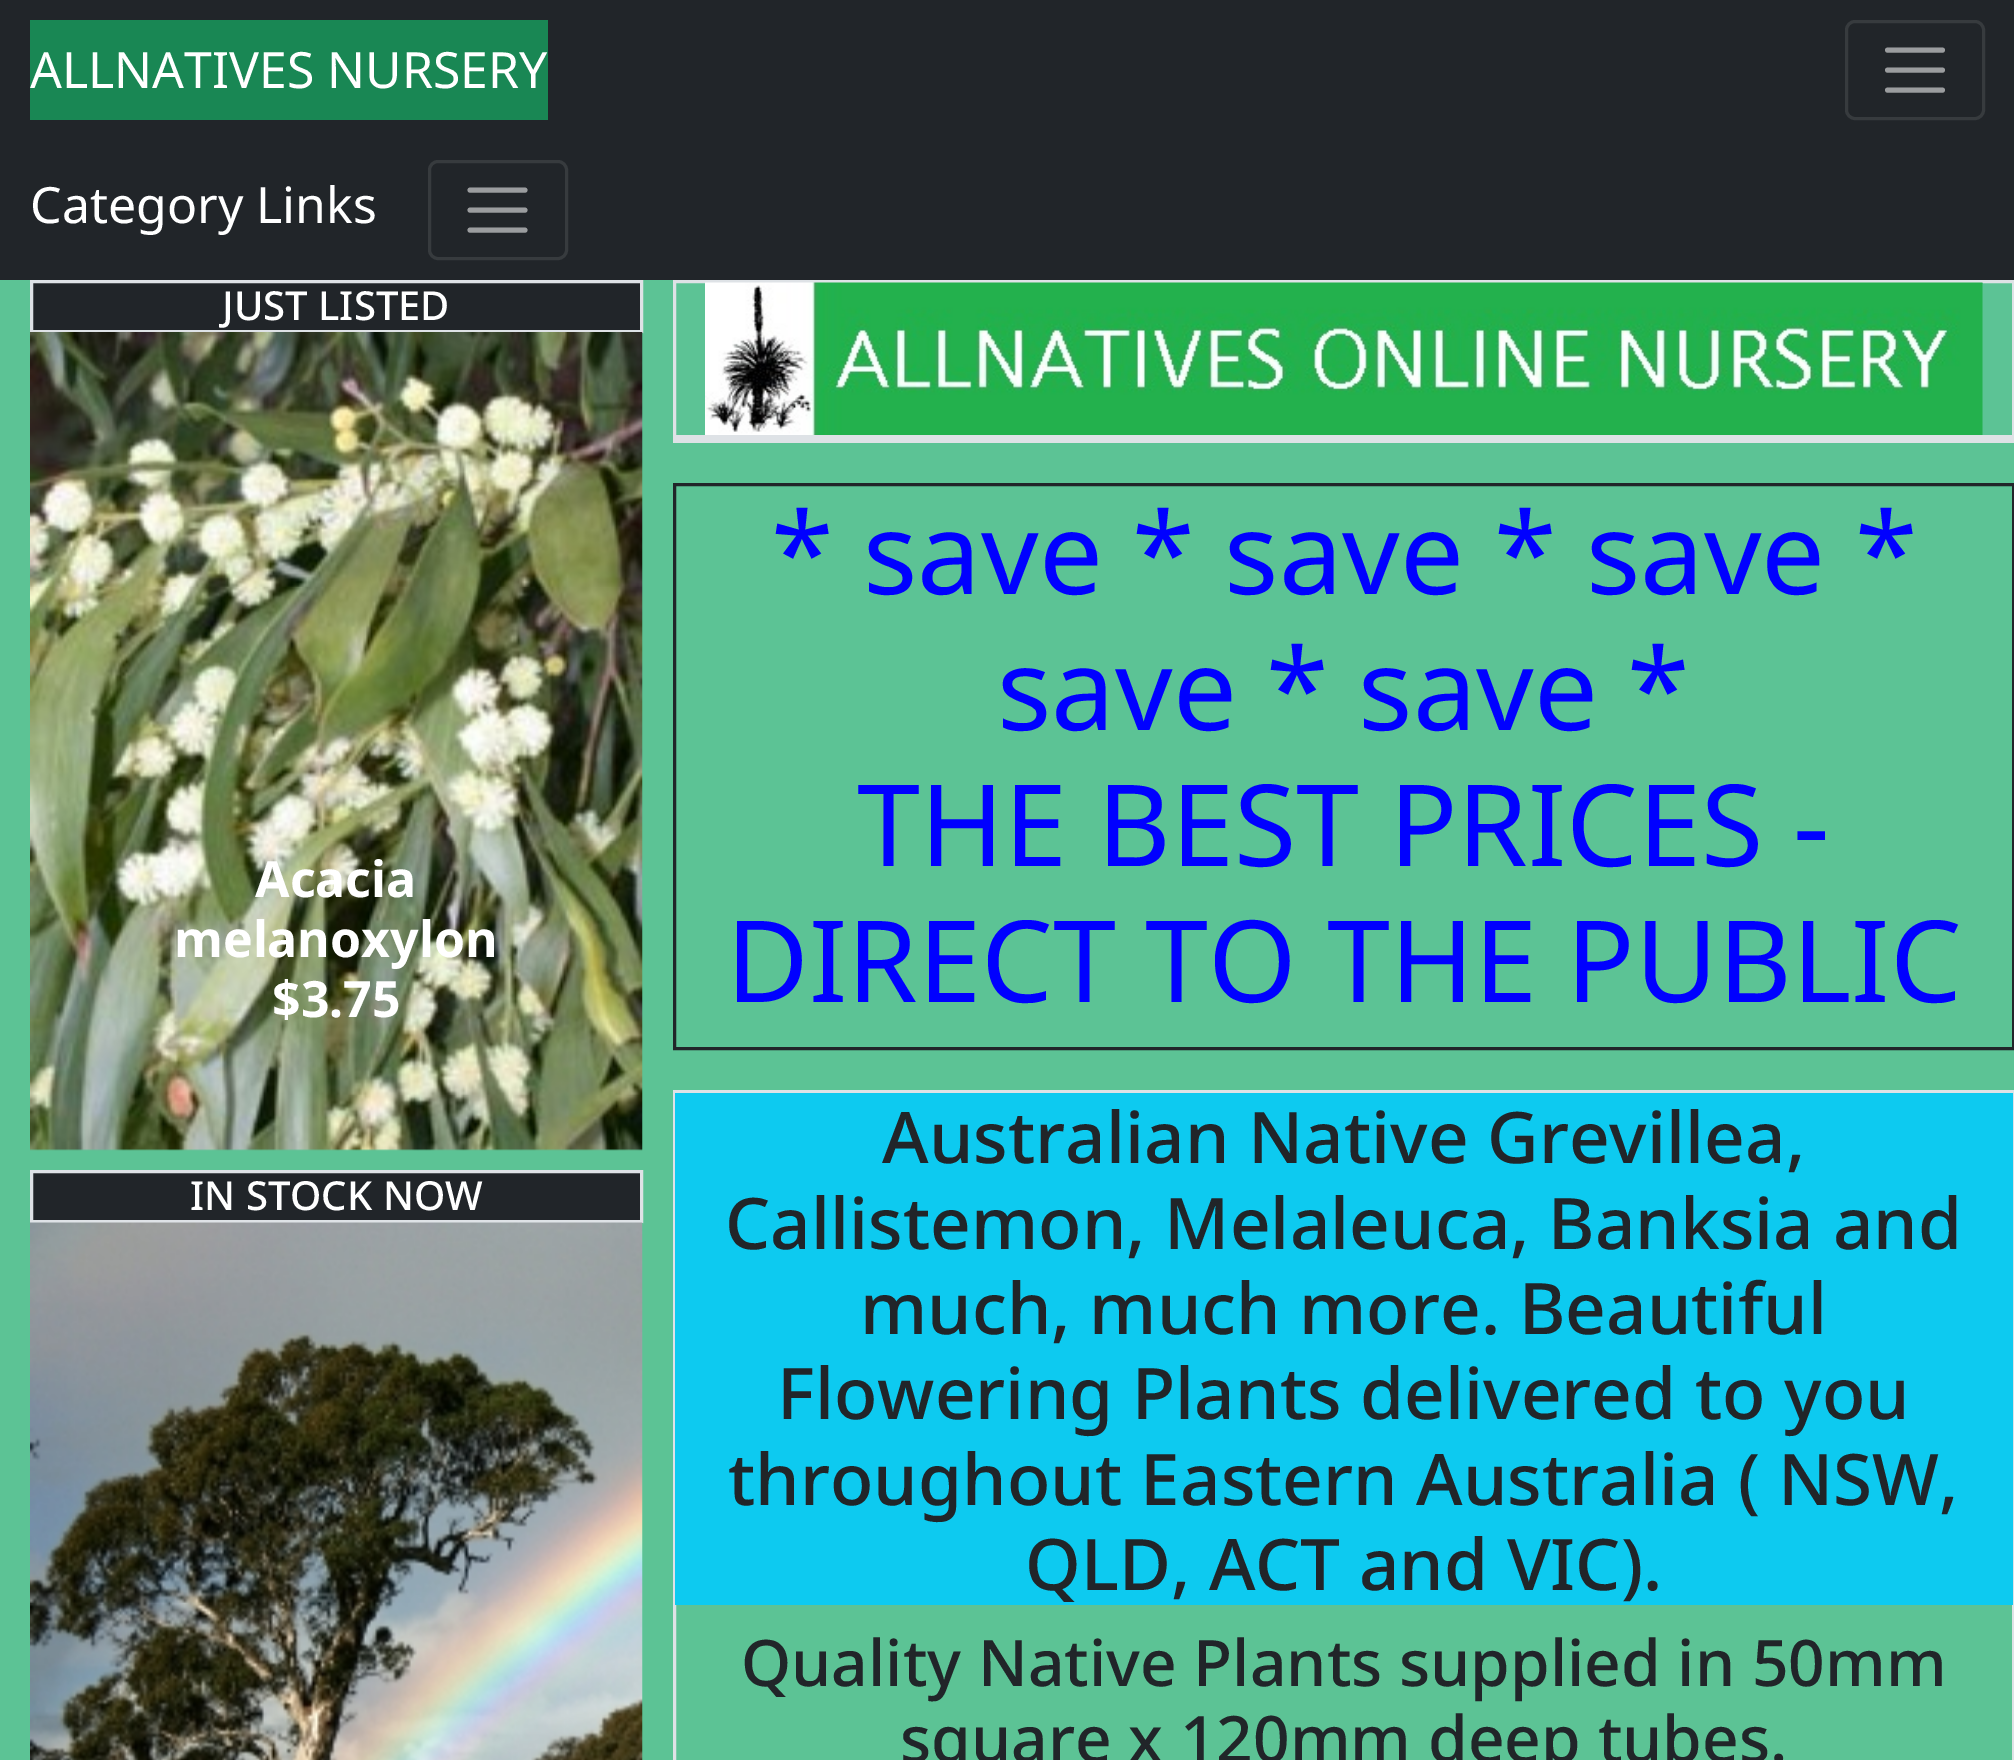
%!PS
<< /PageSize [2014 1760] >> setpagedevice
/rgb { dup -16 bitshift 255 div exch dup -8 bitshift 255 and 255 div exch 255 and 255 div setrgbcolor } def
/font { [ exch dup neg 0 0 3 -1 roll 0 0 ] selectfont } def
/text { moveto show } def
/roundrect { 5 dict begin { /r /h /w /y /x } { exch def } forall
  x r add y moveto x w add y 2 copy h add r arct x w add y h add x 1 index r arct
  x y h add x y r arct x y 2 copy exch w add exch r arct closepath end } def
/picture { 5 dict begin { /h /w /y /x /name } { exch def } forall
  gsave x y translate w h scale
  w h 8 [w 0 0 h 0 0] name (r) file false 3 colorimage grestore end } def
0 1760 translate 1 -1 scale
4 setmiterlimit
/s1 { /NotoSans-Regular 50 font 16#FFFFFF rgb } def
/s2 { /NotoSans-Medium 40 font 16#FFFFFF rgb } def
/s3 { /NotoSans-Bold 50 font 16#FFFFFF rgb } def
/s4 { /NotoSans-Regular 113.5 font 16#0000FF rgb } def
/s5 { /NotoSans-Medium 71.1 font 16#212529 rgb } def
/s6 { /NotoSans-Medium 64.1 font 16#212529 rgb } def
16#5CC395 rgb
0 0 2014 1760 rectfill
16#212529 rgb
0 0 2014 280 rectfill
16#198754 rgb
30 20 518 100 rectfill
s1
(ALLNATIVES NURSERY) 30 88 text
16#373B3E rgb
3 setlinewidth
1846.5 21.5 137 97 8.5 roundrect stroke
16#9B9D9F rgb
5 setlinewidth
1 setlinecap
1887.5 50 moveto 1942.5 50 lineto 1887.5 70 moveto 1942.5 70 lineto 1887.5 90 moveto 1942.5 90 lineto stroke
s1
(Category Links) 30 223 text
16#373B3E rgb
3 setlinewidth
0 setlinecap
429.5 161.5 137 97 8.5 roundrect stroke
16#9B9D9F rgb
5 setlinewidth
1 setlinecap
470 190 moveto 525 190 lineto 470 210 moveto 525 210 lineto 470 230 moveto 525 230 lineto stroke
16#212529 rgb
31.5 281.5 moveto 641.5 281.5 lineto 641.5 331.5 lineto 31.5 331.5 lineto closepath gsave fill grestore
16#DEE2E6 rgb
3 setlinewidth
0 setlinecap
stroke
s2
(JUST LISTED) 222 320 text
(pic1.raw) 30 332 613 819 picture
s3
(Acacia) 255 897 text
(melanoxylon) 174 957 text
($3.75) 272 1017 text
16#212529 rgb
31.5 1171.5 moveto 641.5 1171.5 lineto 641.5 1221.5 lineto 31.5 1221.5 lineto closepath gsave fill grestore
16#DEE2E6 rgb
stroke
s2
(IN STOCK NOW) 190 1210 text
(pic2.raw) 30 1222 613 538 picture
16#DEE2E6 rgb
674.5 281.5 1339 155 rectstroke
(pic3.raw) 705 282 1278 153 picture
673 438 1341 5 rectfill
16#212529 rgb
674.5 484.5 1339 564 rectstroke
s4
(* save * save * save *) 771 594 text
(save * save *) 997 730 text
(THE BEST PRICES -) 857 866 text
(DIRECT TO THE PUBLIC) 726 1002 text
16#DEE2E6 rgb
674.5 1091.5 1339 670 rectstroke
16#0DCAF0 rgb
675 1093 1338 512 rectfill
s5
(Australian Native Grevillea,) 882 1163 text
(Callistemon, Melaleuca, Banksia and) 725 1249 text
(much, much more. Beautiful) 860 1334 text
(Flowering Plants delivered to you) 777 1419 text
(throughout Eastern Australia \( NSW,) 728 1505 text
(QLD, ACT and VIC\).) 1025 1590 text
s6
(Quality Native Plants supplied in 50mm) 741 1686 text
(square x 120mm deep tubes.) 900 1762 text
showpage
